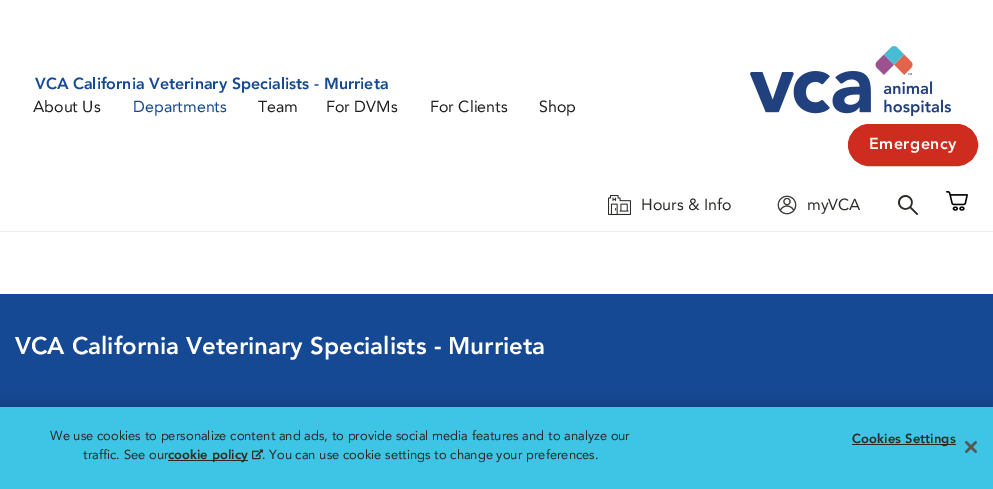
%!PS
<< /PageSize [993 489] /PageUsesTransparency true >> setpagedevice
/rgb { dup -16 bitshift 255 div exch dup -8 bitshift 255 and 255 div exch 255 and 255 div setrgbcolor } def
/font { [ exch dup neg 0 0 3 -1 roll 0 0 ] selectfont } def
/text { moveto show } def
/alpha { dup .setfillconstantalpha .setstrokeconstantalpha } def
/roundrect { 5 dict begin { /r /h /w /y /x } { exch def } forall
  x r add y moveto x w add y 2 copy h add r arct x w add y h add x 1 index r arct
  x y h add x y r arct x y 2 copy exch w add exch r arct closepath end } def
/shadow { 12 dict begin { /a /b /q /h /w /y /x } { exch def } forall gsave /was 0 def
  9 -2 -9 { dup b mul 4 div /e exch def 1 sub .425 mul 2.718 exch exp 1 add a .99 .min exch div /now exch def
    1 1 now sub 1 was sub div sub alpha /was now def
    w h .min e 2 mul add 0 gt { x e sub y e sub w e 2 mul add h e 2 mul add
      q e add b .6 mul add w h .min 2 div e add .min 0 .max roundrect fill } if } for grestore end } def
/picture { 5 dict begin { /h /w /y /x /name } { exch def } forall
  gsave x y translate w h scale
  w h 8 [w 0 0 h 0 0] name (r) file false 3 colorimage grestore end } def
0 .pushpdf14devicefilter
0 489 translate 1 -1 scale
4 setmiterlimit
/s1 { /Avenir-Black 16 font 16#164994 rgb } def
/s2 { /Avenir-Regular 16 font 16#222222 rgb } def
/s3 { /Avenir-Regular 16 font 16#164994 rgb } def
/s4 { /Avenir-Regular 16 font 16#2D2B26 rgb } def
/s5 { /Avenir-Black 24 font 16#FFFFFF rgb } def
/s6 { /Avenir-Regular 13 font 16#2D2B26 rgb } def
/s7 { /Avenir-Black 13 font 16#2D2B26 rgb } def
16#FFFFFF rgb
0 0 993 489 rectfill
16#EDEDED rgb
0 231 993 1 rectfill
s1
(VCA California Veterinary Specialists - Murrieta) 35 89 text
s2
(About Us) 33 112 text
s3
(Departments) 133 112 text
s2
(Team) 258 112 text
(For DVMs) 326 112 text
(For Clients) 430 112 text
(Shop) 539 112 text
(pic1.raw) 750 46 201 70 picture
16#CD2C1E rgb
848.5 124.5 129 41 20.5 roundrect gsave fill grestore
stroke
/Avenir-Black 16 font
16#FFFFFF rgb
869 149 moveto 0.5 0 (Emergency) ashow
(pic2.raw) 608 195 23 20 picture
s4
(Hours & Info) 641 210 text
(pic3.raw) 777 195 20 20 picture
(myVCA) 807 210 text
(pic4.raw) 898 195 20 20 picture
(pic5.raw) 946 191 22 20 picture
16#164994 rgb
0 294 993 113 rectfill
s5
(VCA California Veterinary Specialists - Murrieta) 15 354 text
16#000000 rgb
0 407 993 82 0 9 0.2 shadow
16#3EC4E4 rgb
0 407 993 82 rectfill
s6
(We use cookies to personalize content and ads, to provide social media features and to analyze our) 50 440 text
(traffic. See our) 83 459 text
168 460 80 1 rectfill
s7
(cookie policy) 168 459 text
(pic6.raw) 252 449 11 11 picture
s6
(. You can use cookie settings to change your preferences.) 262 459 text
852 444 104 1 rectfill
/Avenir-Black 13 font
852 443 moveto 0.1 0 (Cookies Settings) ashow
(pic7.raw) 965 441 12 12 picture
.poppdf14devicefilter showpage
